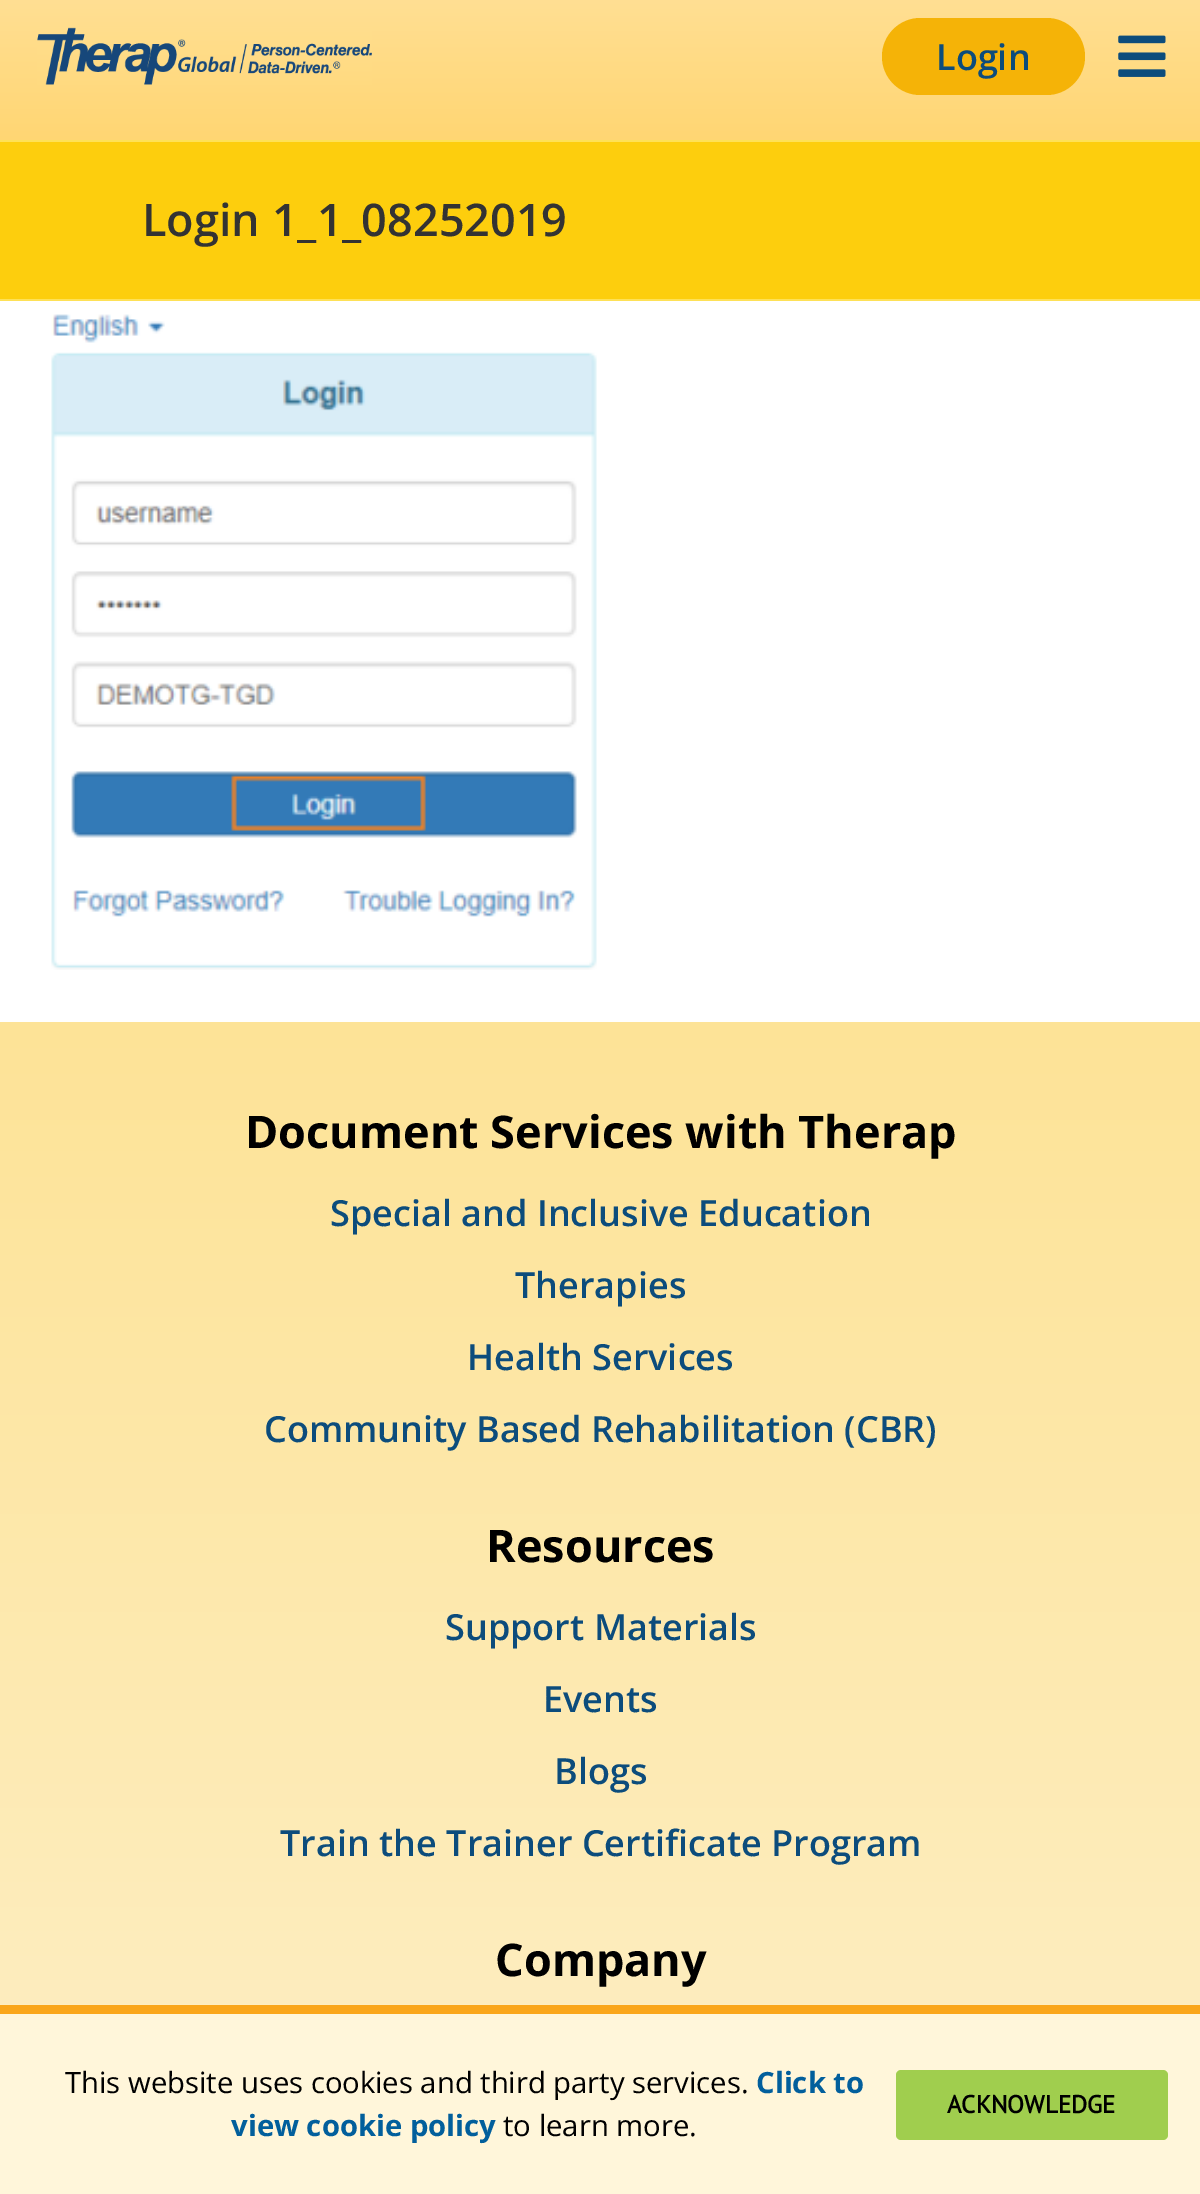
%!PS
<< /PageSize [1200 2194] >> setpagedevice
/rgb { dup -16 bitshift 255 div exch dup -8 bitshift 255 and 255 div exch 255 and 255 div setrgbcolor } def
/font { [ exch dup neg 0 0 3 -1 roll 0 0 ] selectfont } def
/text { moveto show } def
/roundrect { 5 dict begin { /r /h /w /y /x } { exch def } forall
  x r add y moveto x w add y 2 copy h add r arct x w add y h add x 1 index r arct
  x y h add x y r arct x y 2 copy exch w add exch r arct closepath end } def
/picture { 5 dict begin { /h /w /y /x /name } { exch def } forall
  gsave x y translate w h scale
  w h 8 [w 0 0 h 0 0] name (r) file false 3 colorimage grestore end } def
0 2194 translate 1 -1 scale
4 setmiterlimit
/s1 { /OpenSans-SemiBold 36 font 16#0C4C7C rgb } def
/s2 { /OpenSans-SemiBold 45 font 16#333333 rgb } def
/s3 { /OpenSans-Bold 45 font 16#000000 rgb } def
/s4 { /OpenSans-Regular 29.25 font 16#000000 rgb } def
/s5 { /OpenSans-Bold 29.25 font 16#025F9C rgb } def
/s6 { /PTSans-Bold 24.75 font 16#000000 rgb } def
16#FFFFFF rgb
0 0 1200 2194 rectfill
gsave 0 0 moveto 1200 0 lineto 1200 140 lineto 0 140 lineto closepath clip newpath
<< /ShadingType 2 /ColorSpace /DeviceRGB /Coords [601 -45 601 140] /Extend [true true] /Function << /FunctionType 2 /Domain [0 1] /C0 [1 0.886 0.616] /C1 [1 0.839 0.451] /N 1 >> >> shfill grestore
(pic1.raw) 37 27 335 58 picture
16#F5B307 rgb
882 18 203 77 38.5 roundrect fill
s1
(Login) 936 70 text
(pic2.raw) 1118 35 48 42 picture
16#FDCE0D rgb
0 142 1200 157 rectfill
16#FEE157 rgb
0 140 1200 2 rectfill
0 299 1200 2 rectfill
s2
(Login 1_1_08252019) 142 236 text
(pic3.raw) 51 314 546 656 picture
gsave 0 1022 moveto 1200 1022 lineto 1200 2005 lineto 0 2005 lineto closepath clip newpath
<< /ShadingType 2 /ColorSpace /DeviceRGB /Coords [601 1022 601 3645] /Extend [true true] /Function << /FunctionType 2 /Domain [0 1] /C0 [0.992 0.89 0.592] /C1 [1 1 1] /N 1 >> >> shfill grestore
s3
(Document Services with Therap) 245 1148 text
s1
(Special and Inclusive Education) 330 1226 text
(Therapies) 515 1298 text
(Health Services) 467 1370 text
(Community Based Rehabilitation \(CBR\)) 264 1442 text
s3
(Resources) 486 1562 text
s1
(Support Materials) 445 1640 text
(Events) 543 1712 text
(Blogs) 554 1784 text
(Train the Trainer Certificate Program) 280 1856 text
s3
(Company) 495 1976 text
16#FFF6DA rgb
0 2014 1200 180 rectfill
16#FAA61A rgb
0 2005 1200 9 rectfill
s4
(This website uses cookies and third party services.) 65 2093 text
s5
(Click to) 756 2093 text
(view cookie policy) 231 2136 text
s4
(to learn more.) 503 2136 text
16#A0CE4E rgb
896 2070 272 70 5 roundrect fill
s6
(ACKNOWLEDGE) 947 2113 text
showpage
